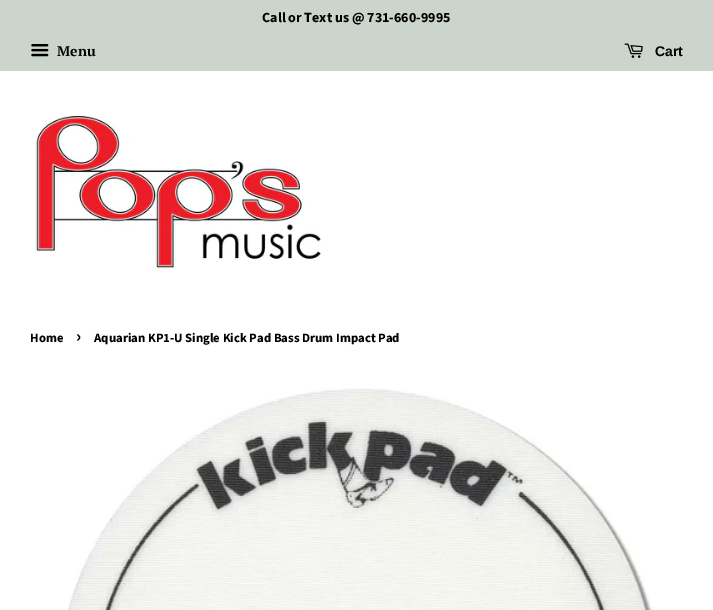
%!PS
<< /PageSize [713 610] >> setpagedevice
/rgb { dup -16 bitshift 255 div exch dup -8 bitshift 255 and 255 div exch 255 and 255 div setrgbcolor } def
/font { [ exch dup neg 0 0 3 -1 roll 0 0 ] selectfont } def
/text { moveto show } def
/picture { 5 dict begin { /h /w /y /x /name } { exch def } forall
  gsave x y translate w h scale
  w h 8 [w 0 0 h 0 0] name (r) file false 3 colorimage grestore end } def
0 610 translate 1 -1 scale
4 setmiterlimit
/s1 { /SourceSansPro-Bold 14 font 16#000000 rgb } def
/s2 { /PTSerif-Bold 14 font 16#000000 rgb } def
/s3 { /LiberationSans-Bold 14 font 16#000000 rgb } def
/s4 { /SourceSansPro-Bold 12.75 font 16#000000 rgb } def
/s5 { /SourceSansPro-Bold 18 font 16#000000 rgb } def
16#FFFFFF rgb
0 0 713 610 rectfill
16#CBD5CC rgb
0 0 713 71 rectfill
s1
(Call or Text us @ 731-660-9995) 262 22 text
(pic1.raw) 31 44 18 13 picture
s2
(Menu) 57 56 text
(pic2.raw) 624 43 19 15 picture
s3
(Cart) 655 56 text
(pic3.raw) 35 114 286 156 picture
s4
(Home) 30 342 text
s5
(›) 76 342 text
s4
(Aquarian KP1-U Single Kick Pad Bass Drum Impact Pad) 94 342 text
(pic4.raw) 67 388 587 222 picture
showpage
